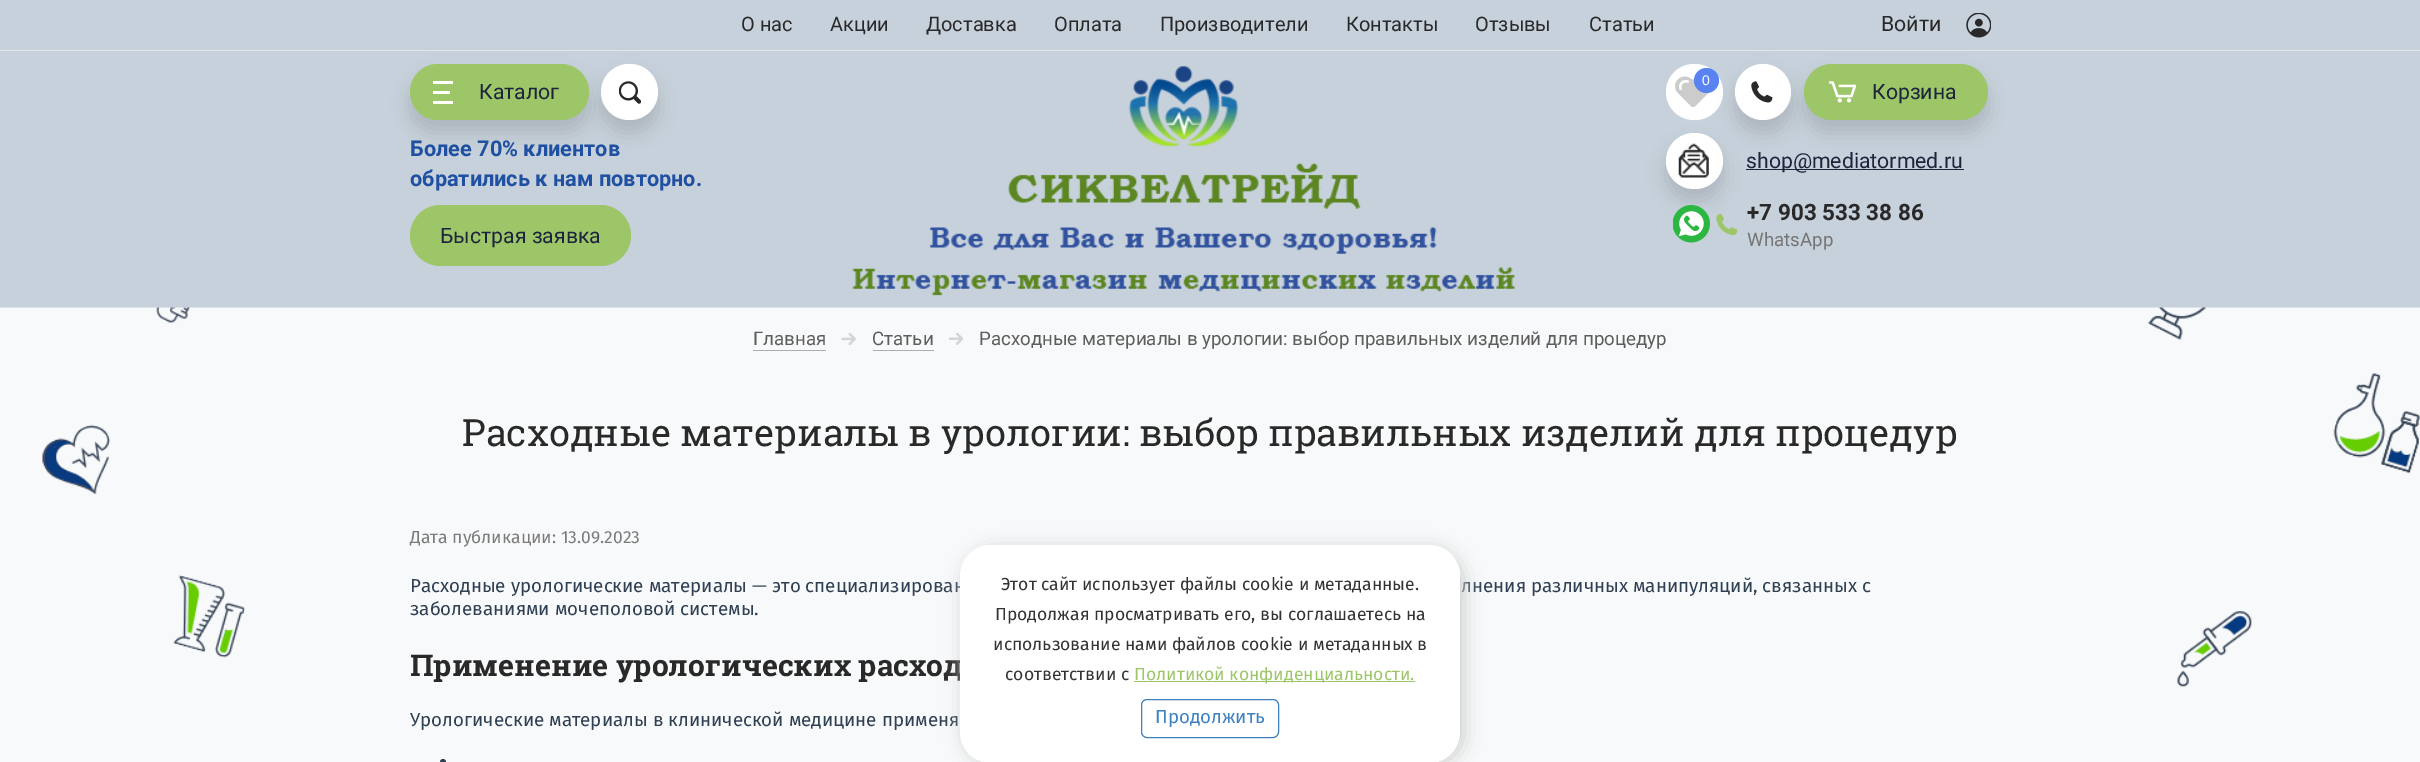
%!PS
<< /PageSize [2420 762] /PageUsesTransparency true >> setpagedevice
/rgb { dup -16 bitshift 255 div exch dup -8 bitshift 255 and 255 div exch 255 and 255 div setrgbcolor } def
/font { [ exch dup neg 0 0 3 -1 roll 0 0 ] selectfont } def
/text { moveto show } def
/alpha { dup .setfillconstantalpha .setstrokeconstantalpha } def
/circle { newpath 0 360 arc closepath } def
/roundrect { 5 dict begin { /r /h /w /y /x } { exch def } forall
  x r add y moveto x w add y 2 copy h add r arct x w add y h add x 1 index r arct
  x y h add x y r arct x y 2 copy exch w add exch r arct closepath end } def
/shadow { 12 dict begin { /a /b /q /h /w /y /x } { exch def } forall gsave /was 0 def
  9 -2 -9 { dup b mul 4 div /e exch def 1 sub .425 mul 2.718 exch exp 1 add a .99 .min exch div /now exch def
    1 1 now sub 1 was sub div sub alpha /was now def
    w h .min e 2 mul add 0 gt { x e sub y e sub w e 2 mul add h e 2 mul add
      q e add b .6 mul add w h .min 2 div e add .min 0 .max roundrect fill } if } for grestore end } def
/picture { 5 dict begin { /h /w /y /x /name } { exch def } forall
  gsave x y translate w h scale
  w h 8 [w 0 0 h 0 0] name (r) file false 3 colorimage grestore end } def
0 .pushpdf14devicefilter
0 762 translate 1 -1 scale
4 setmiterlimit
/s1 { /Roboto-Regular 20 font 16#292929 rgb } def
/s2 { /Roboto-Regular 21.25 font 16#292929 rgb } def
/s3 { /Roboto-Regular 21.25 font 16#1E243C rgb } def
/s4 { /Roboto-Bold 21.7 font 16#1F50A1 rgb } def
/s5 { /LiberationSans-Regular 14 font 16#FFFFFF rgb } def
/s6 { /Roboto-Bold 22.5 font 16#292929 rgb } def
/s7 { /Roboto-Regular 18.75 font 16#757575 rgb } def
/s8 { /Roboto-Regular 18.75 font 16#5D5D5D rgb } def
/s9 { /RobotoSlab-Regular 37.5 font 16#292929 rgb } def
/s10 { /FiraSans-Regular 17.5 font 16#7B7B7B rgb } def
/s11 { /FiraSans-Regular 18.75 font 16#2F4053 rgb } def
/s12 { /RobotoSlab-Bold 30 font 16#292929 rgb } def
/s13 { /FiraSans-Regular 17.5 font 16#333333 rgb } def
/s14 { /FiraSans-Regular 17.5 font 16#9CC667 rgb } def
/s15 { /FiraSans-Regular 18.75 font 16#4082C0 rgb } def
16#C7D1DB rgb
0 0 2420 762 rectfill
16#E4E4E4 rgb
0 50 2420 1 rectfill
s1
(О нас) 741 31 text
(Акции) 830 31 text
(Доставка) 926 31 text
(Оплата) 1054 31 text
(Производители) 1160 31 text
(Контакты) 1346 31 text
(Отзывы) 1475 31 text
(Статьи) 1589 31 text
s2
(Войти) 1881 31 text
(pic1.raw) 1966 13 25 25 picture
16#000000 rgb
601 76 57 57 28.5 9.5 0.13 shadow
16#FFFFFF rgb
601 64 57 56 28 roundrect fill
16#000000 rgb
410 76 179 57 28.5 9.5 0.13 shadow
16#9CC667 rgb
410 64 179 56 28 roundrect fill
16#FFFFFF rgb
433 81 20 3 rectfill
433 91 17 3 rectfill
433 101 20 3 rectfill
s3
(Каталог) 479 99 text
(pic2.raw) 619 81 22 23 picture
s4
(Более 70% клиентов) 410 156 text
(обратились к нам повторно.) 410 186 text
16#9CC667 rgb
410 205 221 61 30.5 roundrect fill
s3
(Быстрая заявка) 440 243 text
(pic3.raw) 852 66 663 230 picture
16#FFFFFF rgb
1666 64 57 56 28 roundrect fill
(pic5.raw) 1675 76 35 31 picture
16#5983F0 rgb
1706.5 80.5 12.5 circle fill
16#000000 rgb
1735 76 56 57 28 9.5 0.13 shadow
16#FFFFFF rgb
1763 92 28 circle fill
(pic4.raw) 1751 81 22 22 picture
s5
(0) 1702 85 text
16#000000 rgb
1804 76 184 57 28.5 9.5 0.13 shadow
16#9CC667 rgb
1804 64 184 56 28 roundrect fill
(pic6.raw) 1829 81 27 22 picture
s3
(Корзина) 1872 99 text
1746 169 218 1 rectfill
16#000000 rgb
1666 145 57 56 28 9.5 0.13 shadow
16#FFFFFF rgb
1666 133 57 56 28 roundrect fill
(pic7.raw) 1678 143 31 35 picture
s3
(shop@mediatormed.ru) 1746 168 text
(pic8.raw) 1673 205 37 38 picture
(pic9.raw) 1716 214 22 21 picture
s6
(+7 903 533 38 86) 1747 220 text
s7
(WhatsApp) 1747 246 text
(pic10.raw) 0 307 2420 455 picture
s8
(Главная) 753 345 text
16#ADAEAF rgb
753 350 73 1 rectfill
(pic11.raw) 841 333 15 12 picture
s8
(Статьи) 872 345 text
16#ADAEAF rgb
873 350 61 1 rectfill
(pic12.raw) 949 333 14 12 picture
s8
(Расходные материалы в урологии: выбор правильных изделий для процедур) 979 345 text
s9
(Расходные материалы в урологии: выбор правильных изделий для процедур) 462 446 text
s10
(Дата публикации: 13.09.2023) 410 543 text
s11
(Расходные урологические материалы — это специализирован) 410 592 text
(лнения различных манипуляций, связанных с) 1461 592 text
(заболеваниями мочеполовой системы.) 410 615 text
s12
(Применение урологических расход) 410 676 text
s11
(Урологические материалы в клинической медицине применя) 410 726 text
443 762 3 circle fill
16#CCCCCC rgb
964 549 500 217 31 9.5 1 shadow
16#FFFFFF rgb
960 545 500 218 31 roundrect fill
s13
(Этот сайт использует файлы cookie и метаданные.) 1001 590 text
(Продолжая просматривать его, вы соглашаетесь на) 995 620 text
(использование нами файлов cookie и метаданных в) 993 650 text
(соответствии с) 1005 680 text
16#9CC667 rgb
1134 681 281 1 rectfill
(Политикой конфиденциальности.) 1134 680 text
16#4082C0 rgb
1141.5 699.5 137 38 5.5 roundrect stroke
s15
(Продолжить) 1155 723 text
.poppdf14devicefilter showpage
